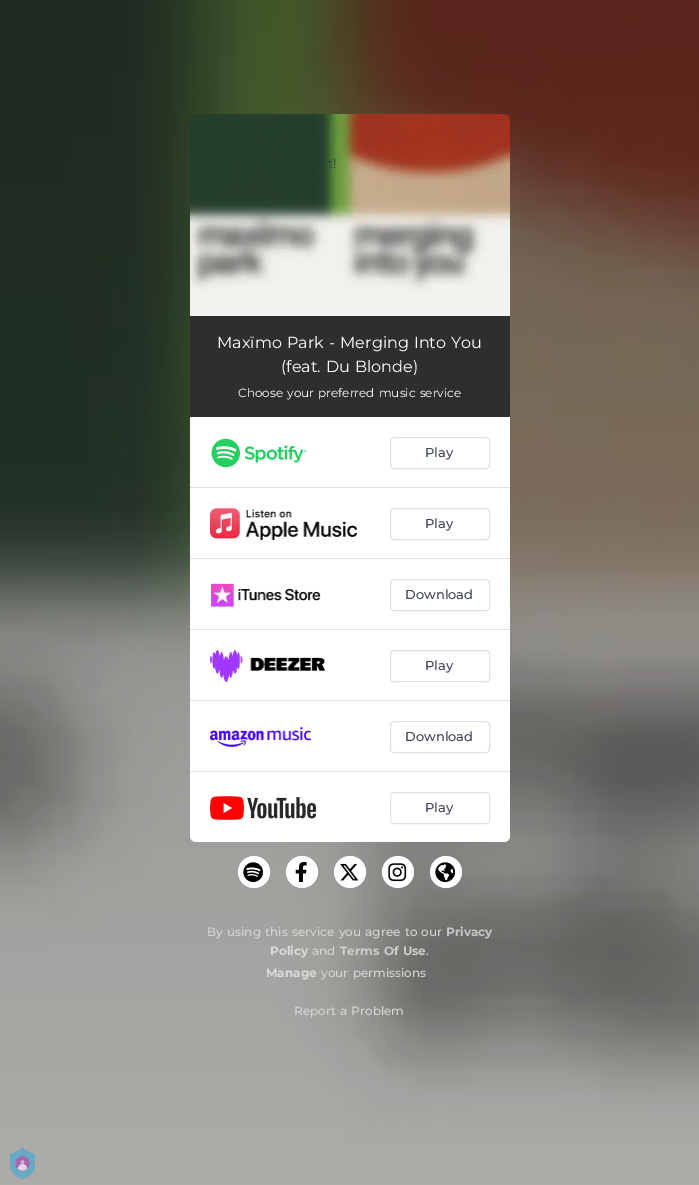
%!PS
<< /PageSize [699 1185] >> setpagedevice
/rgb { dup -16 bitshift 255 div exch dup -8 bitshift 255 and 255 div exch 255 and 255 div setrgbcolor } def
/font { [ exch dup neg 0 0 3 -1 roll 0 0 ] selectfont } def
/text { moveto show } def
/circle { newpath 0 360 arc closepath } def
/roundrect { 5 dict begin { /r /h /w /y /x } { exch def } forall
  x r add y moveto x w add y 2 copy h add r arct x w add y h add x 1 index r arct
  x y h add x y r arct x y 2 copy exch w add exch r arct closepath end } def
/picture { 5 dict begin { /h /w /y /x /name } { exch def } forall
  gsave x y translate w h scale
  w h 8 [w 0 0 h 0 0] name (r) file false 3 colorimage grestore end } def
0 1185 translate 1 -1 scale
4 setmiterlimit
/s1 { /Montserrat-Medium 13 font 16#414754 rgb } def
/s2 { /Montserrat-Bold 12 font 16#C5C5C4 rgb } def
/s3 { /Montserrat-Bold 12 font 16#DADAD9 rgb } def
/s4 { /Montserrat-Medium 12 font 16#D4D4D3 rgb } def
/s5 { /Montserrat-Medium 12 font 16#C5C5C4 rgb } def
16#FFFFFF rgb
0 0 699 1185 rectfill
(pic1.raw) 0 0 699 1185 picture
(pic2.raw) 190 114 320 202 picture
/Montserrat-Regular 13 font
16#2B472E rgb
328 168 moveto 1 0 32 (t!) widthshow
16#2E2E2E rgb
190 316 320 101 rectfill
/Montserrat-Regular 16 font
16#FFFFFF rgb
217 348 moveto 1 0 32 (Maxïmo Park - Merging Into You) widthshow
281 372 moveto 1 0 32 (\(feat. Du Blonde\)) widthshow
/Montserrat-Regular 12 font
238 397 moveto 1 0 32 (Choose your preferred music service) widthshow
190 417 moveto 510 417 lineto 510 836 lineto 510 839.5 507.5 842 504 842 curveto 196 842 lineto 192.5 842 190 839.5 190 836 curveto closepath fill
16#E1E1E4 rgb
190 487 320 1 rectfill
(pic3.raw) 211 438 96 30 picture
390.5 437.5 99 31 3.5 roundrect stroke
s1
(Play) 425 457 text
16#E1E1E4 rgb
190 558 320 1 rectfill
(pic4.raw) 210 508 147 32 picture
390.5 508.5 99 31 3.5 roundrect stroke
s1
(Play) 425 528 text
16#E1E1E4 rgb
190 629 320 1 rectfill
(pic5.raw) 211 583 110 24 picture
390.5 579.5 99 31 3.5 roundrect stroke
s1
(Download) 405 599 text
16#E1E1E4 rgb
190 700 320 1 rectfill
(pic6.raw) 210 650 115 32 picture
390.5 650.5 99 31 3.5 roundrect stroke
s1
(Play) 425 670 text
16#E1E1E4 rgb
190 771 320 1 rectfill
(pic7.raw) 210 727 101 20 picture
390.5 721.5 99 31 3.5 roundrect stroke
s1
(Download) 405 741 text
(pic8.raw) 210 796 106 24 picture
16#E1E1E4 rgb
390.5 792.5 99 31 3.5 roundrect stroke
s1
(Play) 425 812 text
16#FFFFFF rgb
254 872 16 circle fill
(pic9.raw) 243 862 21 20 picture
302 872 16 circle fill
(pic10.raw) 295 862 12 20 picture
350 872 16 circle fill
(pic11.raw) 340 863 19 18 picture
398 872 16 circle fill
(pic12.raw) 388 863 19 19 picture
446 872 16 circle fill
(pic13.raw) 435 862 21 20 picture
/Montserrat-Medium 12 font
16#D4D4D3 rgb
207 936 moveto 1 0 32 (By using this service you agree to our) widthshow
s2
(Privacy) 446 936 text
s3
(Policy) 270 955 text
s4
(and) 312 955 text
/Montserrat-Bold 12 font
16#CDCDCC rgb
340 955 moveto 1 0 32 (Terms Of Use) widthshow
s5
(.) 426 955 text
s3
(Manage) 266 977 text
/Montserrat-Medium 12 font
16#D4D4D3 rgb
321 977 moveto 1 0 32 (your permissions) widthshow
294 1015 moveto 1 0 32 (Report a Problem) widthshow
(pic14.raw) 10 1147 25 33 picture
showpage
